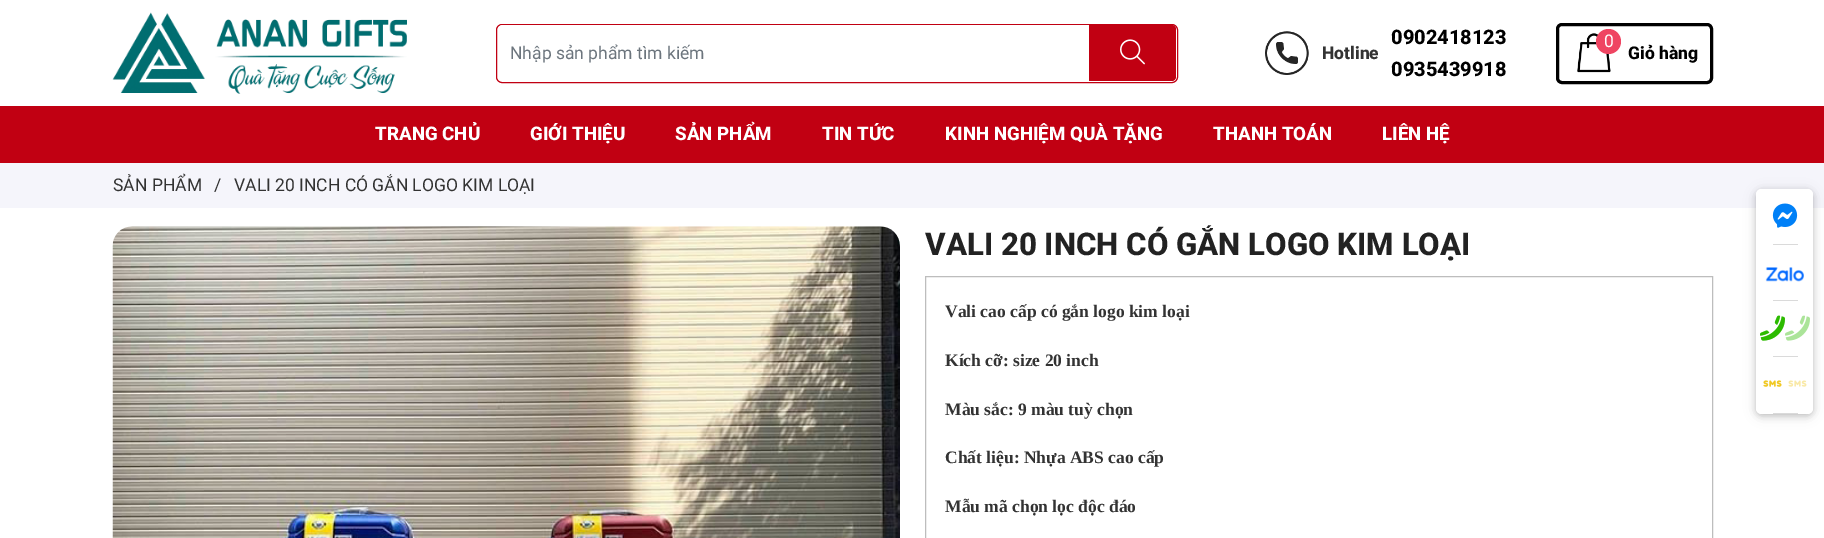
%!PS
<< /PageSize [1824 538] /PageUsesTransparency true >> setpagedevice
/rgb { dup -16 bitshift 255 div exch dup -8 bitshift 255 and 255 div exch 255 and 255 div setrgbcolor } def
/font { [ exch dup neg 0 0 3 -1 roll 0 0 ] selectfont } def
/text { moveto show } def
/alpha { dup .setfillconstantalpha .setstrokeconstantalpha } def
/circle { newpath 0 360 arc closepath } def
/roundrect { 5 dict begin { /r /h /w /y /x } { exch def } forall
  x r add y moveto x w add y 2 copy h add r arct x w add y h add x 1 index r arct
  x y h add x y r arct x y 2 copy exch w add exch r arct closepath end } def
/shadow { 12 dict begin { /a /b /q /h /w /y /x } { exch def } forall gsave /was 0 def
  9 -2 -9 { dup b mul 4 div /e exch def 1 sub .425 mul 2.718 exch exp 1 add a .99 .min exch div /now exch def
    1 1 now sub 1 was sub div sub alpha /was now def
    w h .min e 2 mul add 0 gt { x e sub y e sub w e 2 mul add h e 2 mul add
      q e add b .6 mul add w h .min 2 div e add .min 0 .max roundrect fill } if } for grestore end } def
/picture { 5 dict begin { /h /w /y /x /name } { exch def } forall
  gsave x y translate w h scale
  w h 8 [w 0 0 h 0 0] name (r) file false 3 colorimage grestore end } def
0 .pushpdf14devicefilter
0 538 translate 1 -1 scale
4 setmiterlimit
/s1 { /Roboto-Regular 17.5 font 16#6C757D rgb } def
/s2 { /Roboto-ExtraBold 17.5 font 16#333333 rgb } def
/s3 { /Roboto-ExtraBold 20 font 16#000000 rgb } def
/s4 { /Roboto-Regular 17.5 font 16#FFFFFF rgb } def
/s5 { /Roboto-ExtraBold 17.5 font 16#000000 rgb } def
/s6 { /Roboto-ExtraBold 18.75 font 16#FFFFFF rgb } def
/s7 { /Roboto-Regular 17.5 font 16#333333 rgb } def
/s8 { /Roboto-ExtraBold 31.25 font 16#222222 rgb } def
/s9 { /LiberationSerif-Bold 17.5 font 16#333333 rgb } def
16#FFFFFF rgb
0 0 1824 538 rectfill
(pic1.raw) 112 12 295 82 picture
16#C10012 rgb
496.5 24.5 681 58 5.5 roundrect stroke
16#FFFFFF rgb
503 25 moveto 1089 25 lineto 1089 81 lineto 503 81 lineto 500 81 498 79 498 76 curveto 498 30 lineto 498 27 500 25 503 25 curveto closepath fill
s1
(Nhập sản phẩm tìm kiếm) 510 59 text
16#C10012 rgb
1089 25 moveto 1171 25 lineto 1174 25 1176 27 1176 30 curveto 1176 76 lineto 1176 79 1174 81 1171 81 curveto 1089 81 lineto closepath fill
1089 25 moveto 1089 81 lineto 1171 81 lineto 1174 81 1176 79 1176 76 curveto 1176 30 lineto 1176 27 1174 25 1171 25 curveto closepath 1092 28 moveto 1092 78 lineto 1173 78 lineto 1173 28 lineto closepath eofill
(pic2.raw) 1120 39 25 26 picture
(pic3.raw) 1265 31 44 44 picture
s2
(Hotline) 1322 59 text
s3
(0902418123) 1391 44 text
(0935439918) 1391 76 text
3 setlinewidth
1557.5 24.5 154 58 4.5 roundrect stroke
(pic4.raw) 1577 33 34 40 picture
16#EF4562 rgb
1608.5 41.5 12.5 circle fill
s4
(0) 1604 47 text
s5
(Giỏ hàng) 1628 59 text
16#C10012 rgb
0 106 1824 57 rectfill
s6
(TRANG CHỦ) 375 140 text
(GIỚI THIỆU) 530 140 text
(SẢN PHẨM) 675 140 text
(TIN TỨC) 822 140 text
(KINH NGHIỆM QUÀ TẶNG) 945 140 text
(THANH TOÁN) 1213 140 text
(LIÊN HỆ) 1382 140 text
16#F5F5FB rgb
0 163 1824 45 rectfill
s7
(SẢN PHẨM) 113 191 text
(/) 214 191 text
(VALI 20 INCH CÓ GẮN LOGO KIM LOẠI) 234 191 text
(pic5.raw) 112 226 788 312 picture
s8
(VALI 20 INCH CÓ GẮN LOGO KIM LOẠI) 925 255 text
16#BDBDBD rgb
1 setlinewidth
925.5 276.5 787 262 rectstroke
s9
(Vali cao cấp có gắn logo kim loại) 945 317 text
(Kích cỡ: size 20 inch) 945 366 text
(Màu sắc: 9 màu tuỳ chọn) 945 415 text
(Chất liệu: Nhựa ABS cao cấp) 945 463 text
(Mẫu mã chọn lọc độc đáo) 945 512 text
16#000000 rgb
1756 191 57 225 6 6 0.12 shadow
1756 191 57 225 6 3 0.16 shadow
16#FFFFFF rgb
1756 189 57 225 6 roundrect fill
1762 189 moveto 1807 189 lineto 1810.5 189 1813 191.5 1813 195 curveto 1813 245 lineto 1756 245 lineto 1756 195 lineto 1756 191.5 1758.5 189 1762 189 curveto closepath fill
(pic6.raw) 1772 203 26 25 picture
16#DADADA rgb
1773 244 25 1 rectfill
(pic7.raw) 1765 267 39 15 picture
1773 300 25 1 rectfill
(pic8.raw) 1760 315 25 26 picture
(pic9.raw) 1760 315 50 26 picture
1773 356 25 1 rectfill
16#FFFFFF rgb
1756 358 moveto 1813 358 lineto 1813 408 lineto 1813 411.5 1810.5 414 1807 414 curveto 1762 414 lineto 1758.5 414 1756 411.5 1756 408 curveto closepath fill
(pic10.raw) 1763 380 19 7 picture
(pic11.raw) 1763 380 44 7 picture
16#DADADA rgb
1773 413 25 1 rectfill
.poppdf14devicefilter showpage
